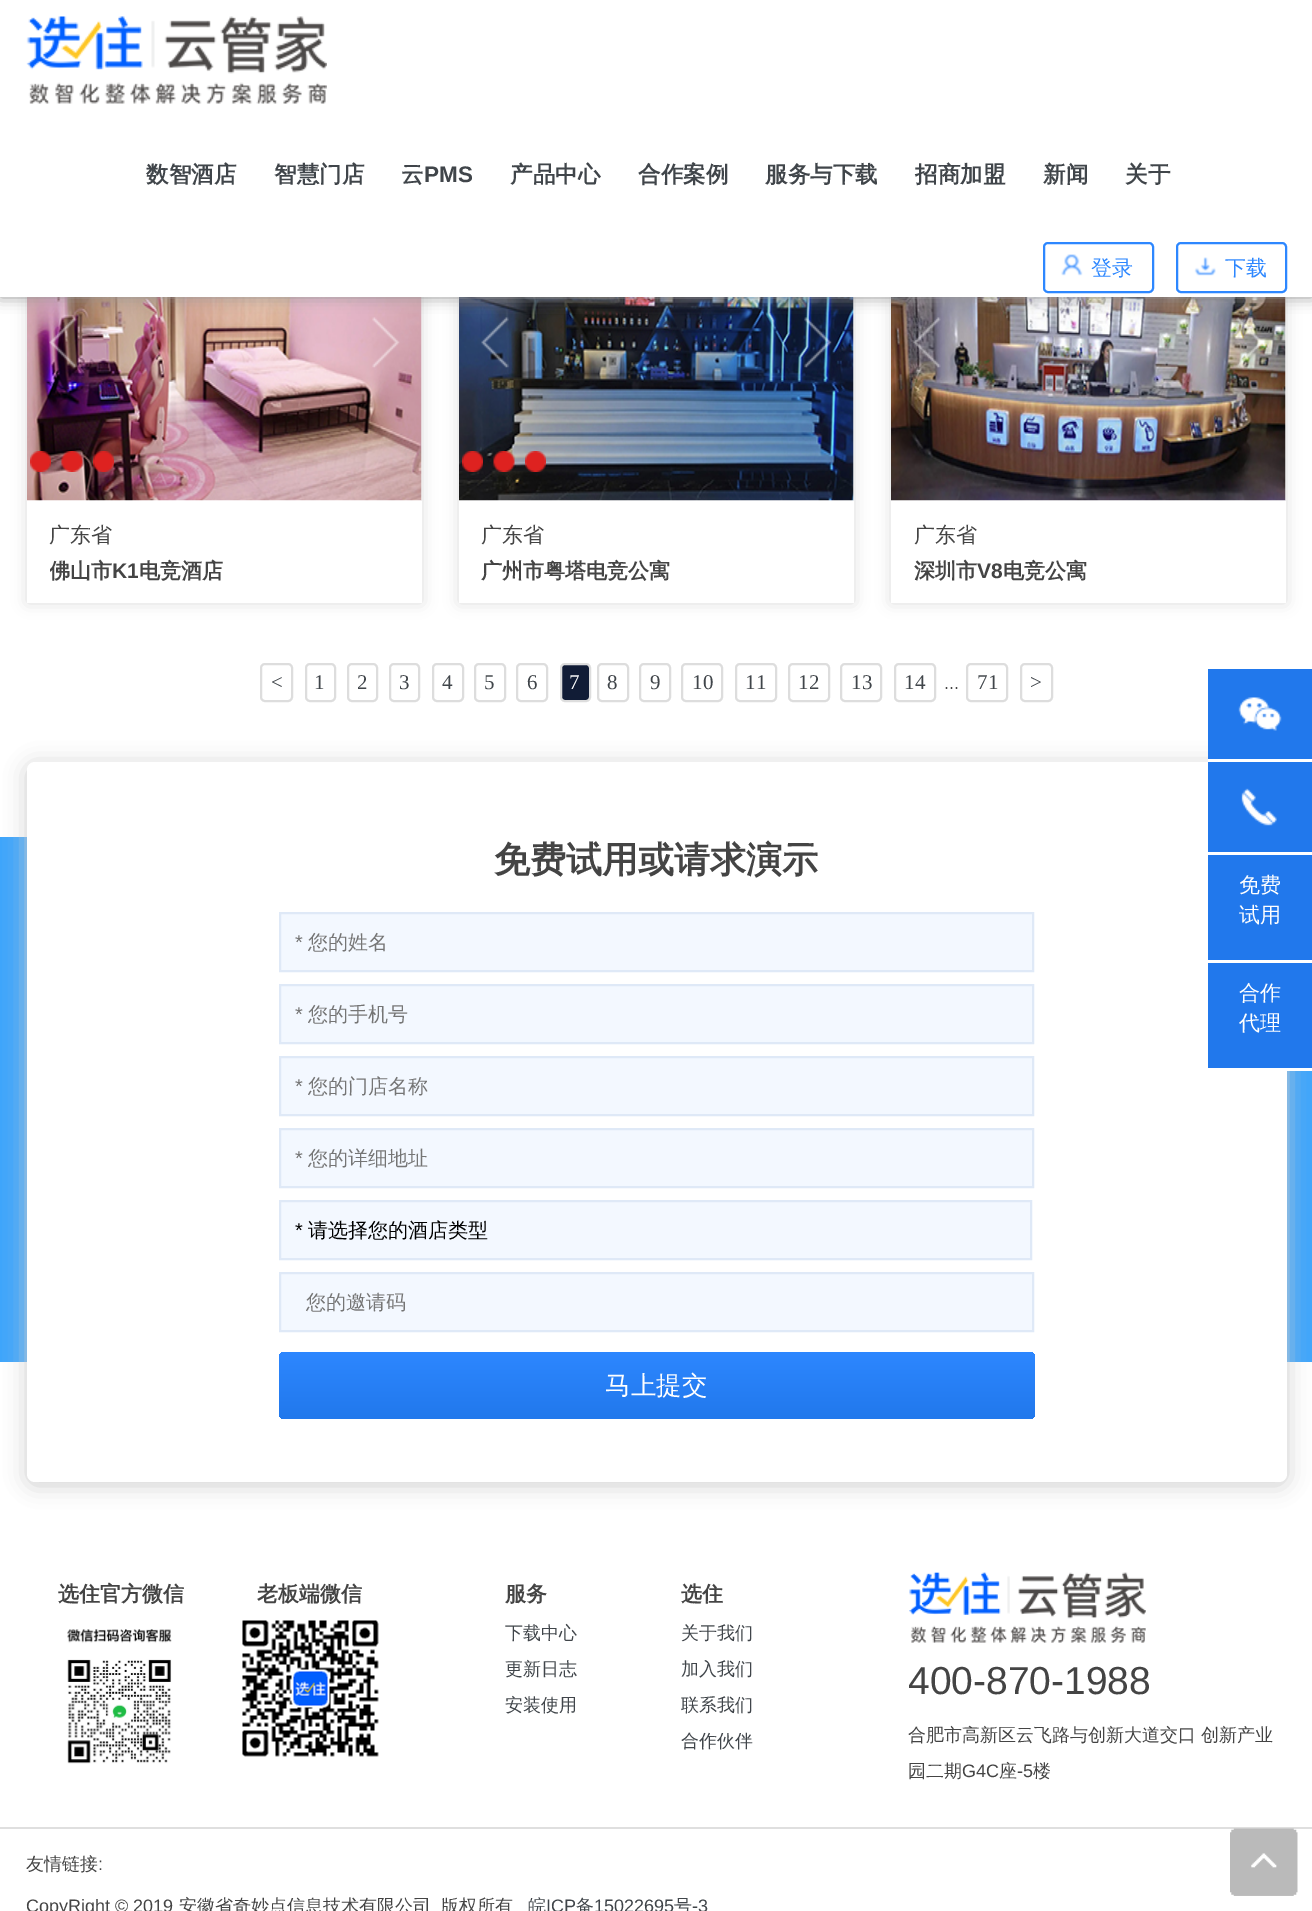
%!PS
<< /PageSize [1312 1911] /PageUsesTransparency true >> setpagedevice
/rgb { dup -16 bitshift 255 div exch dup -8 bitshift 255 and 255 div exch 255 and 255 div setrgbcolor } def
/font { [ exch dup neg 0 0 3 -1 roll 0 0 ] selectfont } def
/text { moveto show } def
/alpha { dup .setfillconstantalpha .setstrokeconstantalpha } def
/roundrect { 5 dict begin { /r /h /w /y /x } { exch def } forall
  x r add y moveto x w add y 2 copy h add r arct x w add y h add x 1 index r arct
  x y h add x y r arct x y 2 copy exch w add exch r arct closepath end } def
/shadow { 12 dict begin { /a /b /q /h /w /y /x } { exch def } forall gsave /was 0 def
  9 -2 -9 { dup b mul 4 div /e exch def 1 sub .425 mul 2.718 exch exp 1 add a .99 .min exch div /now exch def
    1 1 now sub 1 was sub div sub alpha /was now def
    w h .min e 2 mul add 0 gt { x e sub y e sub w e 2 mul add h e 2 mul add
      q e add b .6 mul add w h .min 2 div e add .min 0 .max roundrect fill } if } for grestore end } def
/picture { 5 dict begin { /h /w /y /x /name } { exch def } forall
  gsave x y translate w h scale
  w h 8 [w 0 0 h 0 0] name (r) file false 3 colorimage grestore end } def
0 .pushpdf14devicefilter
0 1911 translate 1 -1 scale
4 setmiterlimit
/s1 { /WenQuanYiZenHei-Bold 22.5 font 16#40454A rgb } def
/s2 { /LiberationSans-Bold 22.5 font 16#40454A rgb } def
/s3 { /WenQuanYiZenHei-Medium 21 font 16#2D87FF rgb } def
/s4 { /WenQuanYiZenHei-Medium 21 font 16#444444 rgb } def
/s5 { /WenQuanYiZenHei-Bold 21 font 16#444444 rgb } def
/s6 { /LiberationSans-Bold 21 font 16#444444 rgb } def
/s7 { /LiberationSerif-Regular 21 font 16#40454A rgb } def
/s8 { /LiberationSerif-Regular 21 font 16#FFFFFF rgb } def
/s9 { /LiberationSans-Regular 18 font 16#444444 rgb } def
/s10 { /WenQuanYiZenHei-Bold 36 font 16#444444 rgb } def
/s11 { /LiberationSans-Regular 20 font 16#757575 rgb } def
/s12 { /WenQuanYiZenHei-Medium 20 font 16#757575 rgb } def
/s13 { /LiberationSans-Regular 20 font 16#000000 rgb } def
/s14 { /WenQuanYiZenHei-Medium 20 font 16#000000 rgb } def
/s15 { /WenQuanYiZenHei-Medium 25.5 font 16#FFFFFF rgb } def
/s16 { /WenQuanYiZenHei-Medium 21 font 16#FFFFFF rgb } def
/s17 { /WenQuanYiZenHei-Medium 18 font 16#40454A rgb } def
/s18 { /LiberationSans-Regular 39 font 16#444444 rgb } def
/s19 { /WenQuanYiZenHei-Medium 18 font 16#444444 rgb } def
/s20 { /LiberationSans-Regular 18 font 16#40454A rgb } def
16#FFFFFF rgb
0 0 1312 1911 rectfill
gsave
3 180 moveto 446 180 lineto 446 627 lineto 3 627 lineto closepath 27 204 moveto 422 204 lineto 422 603 lineto 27 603 lineto closepath eoclip newpath
16#DDDDDD rgb
27 204 395 399 0 7.5 1 shadow
grestore
gsave
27 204 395 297 rectclip
16#DDDDDD rgb
27 204 395 297 0 7.5 1 shadow
grestore
(pic4.raw) 27 297 395 204 picture
(pic5.raw) 49 317 28 51 picture
(pic6.raw) 372 317 28 51 picture
gsave
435 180 moveto 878 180 lineto 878 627 lineto 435 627 lineto closepath 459 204 moveto 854 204 lineto 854 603 lineto 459 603 lineto closepath eoclip newpath
16#DDDDDD rgb
459 204 395 399 0 7.5 1 shadow
grestore
gsave
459 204 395 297 rectclip
16#DDDDDD rgb
459 204 395 297 0 7.5 1 shadow
grestore
(pic10.raw) 459 297 395 204 picture
(pic11.raw) 481 317 28 51 picture
(pic12.raw) 804 317 28 51 picture
gsave
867 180 moveto 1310 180 lineto 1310 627 lineto 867 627 lineto closepath 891 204 moveto 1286 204 lineto 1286 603 lineto 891 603 lineto closepath eoclip newpath
16#DDDDDD rgb
891 204 395 399 0 7.5 1 shadow
grestore
gsave
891 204 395 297 rectclip
16#DDDDDD rgb
891 204 395 297 0 7.5 1 shadow
grestore
(pic16.raw) 891 297 395 204 picture
(pic17.raw) 913 317 28 51 picture
(pic18.raw) 1236 317 26 51 picture
16#999999 rgb
0 0 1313 297 0 7.5 1 shadow
16#FFFFFF rgb
0 0 1312 297 rectfill
(pic1.raw) 26 16 301 88 picture
s1
(数智酒店) 146 182 text
(智慧门店) 274 182 text
(云) 401 182 text
s2
(PMS) 424 182 text
s1
(产品中心) 510 182 text
(合作案例) 638 182 text
(服务与下载) 765 182 text
(招商加盟) 915 182 text
(新闻) 1043 182 text
(关于) 1125 182 text
16#2D87FF rgb
2 setlinewidth
1044 243 109 49 4 roundrect stroke
(pic2.raw) 1061 254 22 22 picture
s3
(登录) 1091 275 text
1177 243 109 49 4 roundrect stroke
(pic3.raw) 1194 257 22 19 picture
(下载) 1225 275 text
(pic7.raw) 30 451 21 21 picture
(pic8.raw) 61 451 22 21 picture
(pic9.raw) 93 451 21 21 picture
s4
(广东省) 49 542 text
gsave
50 552 349 36 rectclip
s5
(佛山市) 49 578 text
grestore
s6
(K1) 112 578 text
s5
(电竞酒店) 139 578 text
(pic13.raw) 462 451 21 21 picture
(pic14.raw) 493 451 22 21 picture
(pic15.raw) 525 451 21 21 picture
s4
(广东省) 481 542 text
s5
(广州市粤塔电竞公寓) 481 578 text
s4
(广东省) 914 542 text
s5
(深圳市) 914 578 text
s6
(V8) 977 578 text
s5
(电竞公寓) 1003 578 text
16#DDDDDD rgb
261 664 31 37 4 roundrect stroke
s7
(<) 271 689 text
16#DDDDDD rgb
306 664 29 37 4 roundrect stroke
s7
(1) 314 689 text
16#DDDDDD rgb
348 664 29 37 4 roundrect stroke
s7
(2) 357 689 text
16#DDDDDD rgb
390 664 29 37 4 roundrect stroke
s7
(3) 399 689 text
16#DDDDDD rgb
433 664 30 37 4 roundrect stroke
s7
(4) 442 689 text
16#DDDDDD rgb
475 664 30 37 4 roundrect stroke
s7
(5) 484 689 text
16#DDDDDD rgb
517 664 30 37 4 roundrect stroke
s7
(6) 527 689 text
16#111C36 rgb
561 664 29 37 4 roundrect gsave fill grestore
16#DDDDDD rgb
stroke
s8
(7) 569 689 text
16#DDDDDD rgb
598 664 30 37 4 roundrect stroke
s7
(8) 607 689 text
16#DDDDDD rgb
640 664 30 37 4 roundrect stroke
s7
(9) 650 689 text
16#DDDDDD rgb
682 664 40 37 4 roundrect stroke
s7
(10) 692 689 text
16#DDDDDD rgb
736 664 40 37 4 roundrect stroke
s7
(11) 745 689 text
16#DDDDDD rgb
789 664 40 37 4 roundrect stroke
s7
(12) 798 689 text
16#DDDDDD rgb
841 664 40 37 4 roundrect stroke
s7
(13) 851 689 text
16#DDDDDD rgb
895 664 40 37 4 roundrect stroke
s7
(14) 904 689 text
s9
(...) 944 689 text
16#DDDDDD rgb
967 664 40 37 4 roundrect stroke
s7
(71) 977 689 text
16#DDDDDD rgb
1021 664 31 37 4 roundrect stroke
s7
(>) 1030 689 text
16#3EA5FB rgb
0 837 1312 525 rectfill
16#CCCCCC rgb
27 765 1260 720 8 11 1 shadow
16#FFFFFF rgb
27 762 1260 720 8 roundrect fill
s10
(免费试用或请求演示) 494 872 text
16#F3F8FF rgb
280 913 moveto 1033 913 lineto 1033 971 lineto 280 971 lineto closepath gsave fill grestore
16#DFE9F7 rgb
stroke
s11
(*) 295 949 text
s12
(您的姓名) 308 949 text
16#F3F8FF rgb
280 985 moveto 1033 985 lineto 1033 1043 lineto 280 1043 lineto closepath gsave fill grestore
16#DFE9F7 rgb
stroke
s11
(*) 295 1021 text
s12
(您的手机号) 308 1021 text
16#F3F8FF rgb
280 1057 moveto 1033 1057 lineto 1033 1115 lineto 280 1115 lineto closepath gsave fill grestore
16#DFE9F7 rgb
stroke
s11
(*) 295 1093 text
s12
(您的门店名称) 308 1093 text
16#F3F8FF rgb
280 1129 moveto 1033 1129 lineto 1033 1187 lineto 280 1187 lineto closepath gsave fill grestore
16#DFE9F7 rgb
stroke
s11
(*) 295 1165 text
s12
(您的详细地址) 308 1165 text
16#F3F8FF rgb
280 1201 moveto 1031 1201 lineto 1031 1259 lineto 280 1259 lineto closepath gsave fill grestore
16#DFE9F7 rgb
stroke
s13
(*) 295 1237 text
s14
(请选择您的酒店类型) 308 1237 text
16#F3F8FF rgb
280 1273 moveto 1033 1273 lineto 1033 1331 lineto 280 1331 lineto closepath gsave fill grestore
16#DFE9F7 rgb
stroke
s12
(您的邀请码) 306 1309 text
gsave 279 1352 756 67 5 roundrect clip newpath
<< /ShadingType 2 /ColorSpace /DeviceRGB /Coords [279 1352 279 1419] /Extend [true true] /Function << /FunctionType 2 /Domain [0 1] /C0 [0.176 0.529 1] /C1 [0.129 0.471 0.925] /N 1 >> >> shfill grestore
s15
(马上提交) 605 1394 text
16#2178EC rgb
1208 669 104 399 rectfill
(pic19.raw) 1238 697 44 34 picture
16#FFFFFF rgb
1208 759 104 3 rectfill
(pic20.raw) 1241 788 36 38 picture
1208 852 104 3 rectfill
1208 960 104 3 rectfill
s16
(免费) 1239 892 text
(试用) 1239 922 text
1287 1068 25 3 rectfill
(合作) 1239 1000 text
(代理) 1239 1030 text
s5
(选住官方微信) 58 1601 text
(pic21.raw) 67 1629 105 135 picture
(老板端微信) 257 1601 text
(pic22.raw) 242 1620 137 137 picture
(服务) 505 1601 text
s17
(下载中心) 505 1639 text
(更新日志) 505 1675 text
(安装使用) 505 1711 text
s5
(选住) 681 1601 text
s17
(关于我们) 681 1639 text
(加入我们) 681 1675 text
(联系我们) 681 1711 text
(合作伙伴) 681 1747 text
(pic23.raw) 909 1572 237 71 picture
s18
(400-870-1988) 908 1694 text
s19
(合肥市高新区云飞路与创新大道交口 创新产业) 908 1741 text
(园二期) 908 1777 text
s9
(G4C) 962 1777 text
s19
(座) 999 1777 text
s9
(-5) 1017 1777 text
s19
(楼) 1033 1777 text
16#DFDFDF rgb
0 1827 1312 2 rectfill
s19
(友情链接) 26 1870 text
s9
(:) 98 1870 text
(CopyRight © 2019) 26 1912 text
s19
(安徽省奇妙点信息技术有限公司) 179 1912 text
(版权所有) 441 1912 text
s17
(皖) 528 1912 text
s20
(ICP) 546 1912 text
s17
(备) 576 1912 text
s20
(15022695) 594 1912 text
s17
(号) 674 1912 text
s20
(-3) 692 1912 text
(pic24.raw) 1230 1828 68 68 picture
.poppdf14devicefilter showpage
